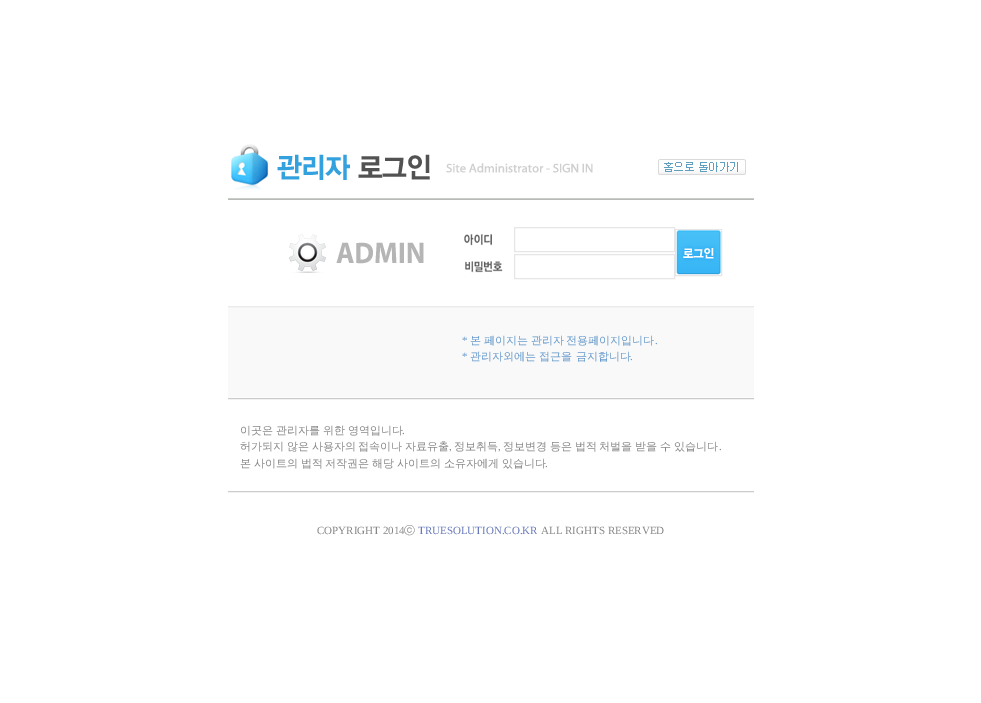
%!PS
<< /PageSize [981 703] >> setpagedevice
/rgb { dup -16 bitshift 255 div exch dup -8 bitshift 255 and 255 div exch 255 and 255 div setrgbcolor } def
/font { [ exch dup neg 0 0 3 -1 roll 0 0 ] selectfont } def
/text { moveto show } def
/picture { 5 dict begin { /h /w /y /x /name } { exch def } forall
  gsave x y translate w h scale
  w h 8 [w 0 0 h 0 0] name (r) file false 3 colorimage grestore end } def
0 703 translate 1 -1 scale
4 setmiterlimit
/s1 { /LiberationSerif-Regular 11 font 16#6699CC rgb } def
/s2 { /WenQuanYiZenHei-Medium 11 font 16#6699CC rgb } def
/s3 { /WenQuanYiZenHei-Medium 11 font 16#868686 rgb } def
/s4 { /LiberationSerif-Regular 11 font 16#868686 rgb } def
/s5 { /LiberationSerif-Regular 11 font 16#6879B9 rgb } def
16#FFFFFF rgb
0 0 981 703 rectfill
(pic1.raw) 231 144 362 46 picture
(pic2.raw) 658 159 88 16 picture
(pic3.raw) 228 198 526 295 picture
(pic4.raw) 289 234 135 39 picture
(pic5.raw) 464 234 28 12 picture
16#E6E6E6 rgb
514.5 227.5 160 24 rectstroke
675.5 229.5 46 46 rectstroke
(pic6.raw) 676 230 45 45 picture
(pic7.raw) 465 261 38 12 picture
514.5 254.5 160 24 rectstroke
s1
(*) 462 344 text
/WenQuanYiZenHei-Medium 11 font
470 344 moveto -0.5 0 32 (본 페이지는 관리자 전용페이지입니다) widthshow
s1
(.) 655 344 text
(*) 462 360 text
s2
(관리자외에는 접근을 금지합니다) 470 360 text
s1
(.) 630 360 text
s3
(이곳은) 240 434 text
276 434 moveto -0.5 0 32 (관리자를 위한 영역입니다) widthshow
s4
(.) 402 434 text
/WenQuanYiZenHei-Medium 11 font
240 450 moveto -0.5 0 32 (허가되지 않은 사용자의 접속이나 자료유출) widthshow
s4
(,) 449 450 text
s3
(정보취득) 454 450 text
s4
(,) 498 450 text
/WenQuanYiZenHei-Medium 11 font
503 450 moveto -0.5 0 32 (정보변경 등은 법적 처벌을 받을 수 있습니다) widthshow
s4
(.) 719 450 text
/WenQuanYiZenHei-Medium 11 font
240 467 moveto -0.5 0 32 (본 사이트의 법적 저작권은 해당 사이트의 소유자에게 있습니다) widthshow
s4
(.) 545 467 text
(COPYRIGHT 2014) 317 534 text
s3
(ⓒ) 404 534 text
s5
(TRUESOLUTION.CO.KR) 418 534 text
s4
(ALL RIGHTS RESERVED) 541 534 text
showpage
